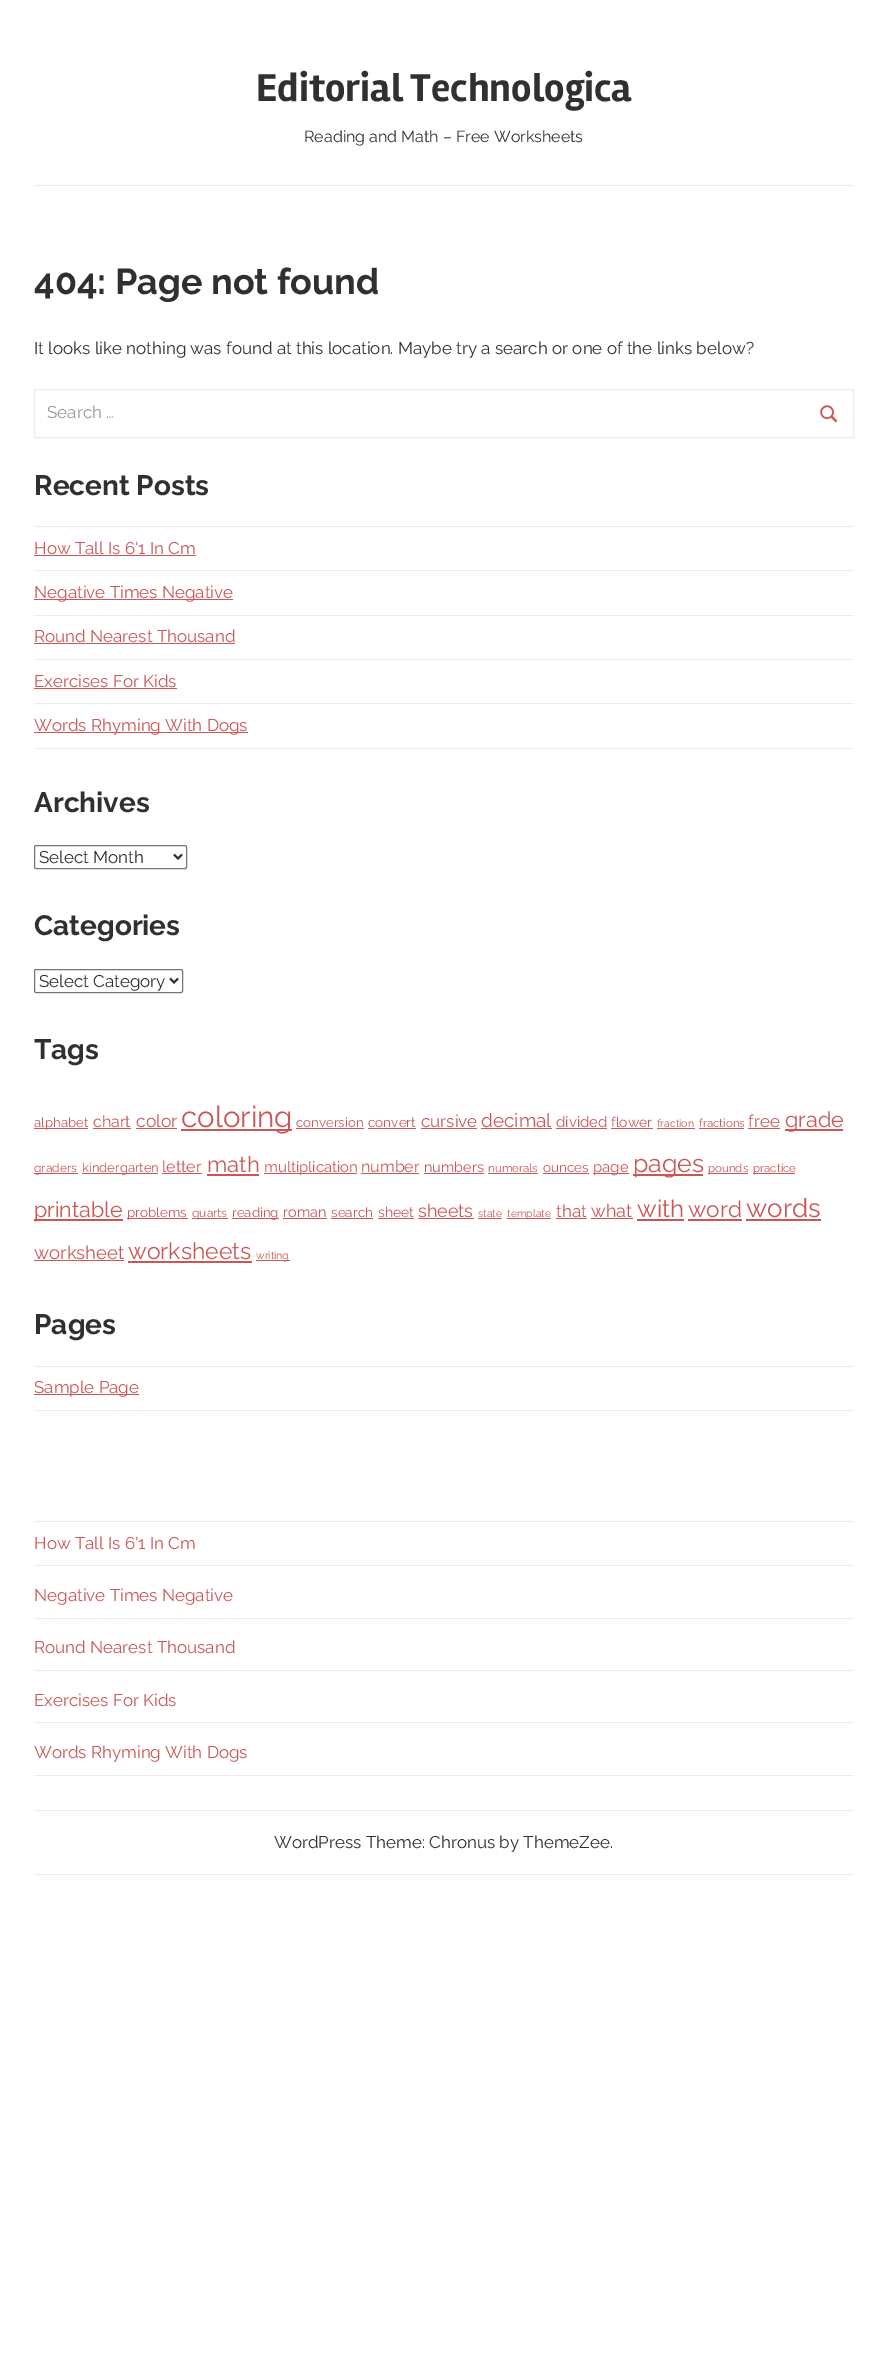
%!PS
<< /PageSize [888 2363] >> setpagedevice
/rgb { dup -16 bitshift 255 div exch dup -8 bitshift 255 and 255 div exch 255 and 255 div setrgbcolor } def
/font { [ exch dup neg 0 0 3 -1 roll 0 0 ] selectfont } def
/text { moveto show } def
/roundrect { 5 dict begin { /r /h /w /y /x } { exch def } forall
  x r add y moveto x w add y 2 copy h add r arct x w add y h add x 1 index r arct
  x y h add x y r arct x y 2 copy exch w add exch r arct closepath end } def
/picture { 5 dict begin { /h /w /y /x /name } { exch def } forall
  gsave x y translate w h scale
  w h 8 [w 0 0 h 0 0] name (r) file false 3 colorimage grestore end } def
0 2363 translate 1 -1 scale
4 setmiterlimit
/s1 { /Rambla-Bold 40 font 16#303030 rgb } def
/s2 { /Raleway-Regular 16 font 16#303030 rgb } def
/s3 { /Raleway-Bold 36 font 16#303030 rgb } def
/s4 { /Raleway-Regular 17 font 16#303030 rgb } def
/s5 { /Raleway-Regular 17 font 16#999999 rgb } def
/s6 { /Raleway-Bold 28 font 16#303030 rgb } def
/s7 { /Raleway-Regular 17 font 16#CC5555 rgb } def
/s8 { /Raleway-Regular 13.25 font 16#CC5555 rgb } def
/s9 { /Raleway-Regular 16 font 16#CC5555 rgb } def
/s10 { /Raleway-Regular 17.5 font 16#CC5555 rgb } def
/s11 { /Raleway-Regular 29.5 font 16#CC5555 rgb } def
/s12 { /Raleway-Regular 13.5 font 16#CC5555 rgb } def
/s13 { /Raleway-Regular 19 font 16#CC5555 rgb } def
/s14 { /Raleway-Regular 15 font 16#CC5555 rgb } def
/s15 { /Raleway-Regular 14 font 16#CC5555 rgb } def
/s16 { /Raleway-Regular 10.5 font 16#CC5555 rgb } def
/s17 { /Raleway-Regular 11.5 font 16#CC5555 rgb } def
/s18 { /Raleway-Regular 21.5 font 16#CC5555 rgb } def
/s19 { /Raleway-Regular 12 font 16#CC5555 rgb } def
/s20 { /Raleway-Regular 13 font 16#CC5555 rgb } def
/s21 { /Raleway-Regular 22 font 16#CC5555 rgb } def
/s22 { /Raleway-Regular 14.5 font 16#CC5555 rgb } def
/s23 { /Raleway-Regular 25 font 16#CC5555 rgb } def
/s24 { /Raleway-Regular 18 font 16#CC5555 rgb } def
/s25 { /Raleway-Regular 24 font 16#CC5555 rgb } def
/s26 { /Raleway-Regular 22.5 font 16#CC5555 rgb } def
/s27 { /Raleway-Regular 26 font 16#CC5555 rgb } def
/s28 { /Raleway-Regular 18.5 font 16#CC5555 rgb } def
/s29 { /Raleway-Regular 23 font 16#CC5555 rgb } def
16#FFFFFF rgb
0 0 888 2363 rectfill
16#ECECEC rgb
34 185 820 1 rectfill
s1
(Editorial Technologica) 256 101 text
s2
(Reading and Math – Free Worksheets) 304 142 text
s3
(404: Page not found) 34 294 text
s4
(It looks like nothing was found at this location. Maybe try a search or one of the links below?) 34 354 text
16#ECECEC rgb
34.5 389.5 819 48 rectstroke
s5
(Search …) 47 418 text
(pic1.raw) 820 405 18 18 picture
s6
(Recent Posts) 34 495 text
16#ECECEC rgb
34 526 820 1 rectfill
34 570 820 1 rectfill
s7
(How Tall Is 6'1 In Cm) 34 554 text
34 555 162 1 rectfill
16#ECECEC rgb
34 615 820 1 rectfill
16#CC5555 rgb
34 599 199 1 rectfill
(Negative Times Negative) 34 598 text
16#ECECEC rgb
34 659 820 1 rectfill
s7
(Round Nearest Thousand) 34 642 text
34 643 201 1 rectfill
16#ECECEC rgb
34 703 820 1 rectfill
s7
(Exercises For Kids) 34 687 text
34 688 143 1 rectfill
16#ECECEC rgb
34 748 820 1 rectfill
16#CC5555 rgb
34 732 214 1 rectfill
(Words Rhyming With Dogs) 34 731 text
s6
(Archives) 34 812 text
16#767676 rgb
34.5 845.5 152 23 1.5 roundrect stroke
16#303030 rgb
2 setlinewidth
174 854.5 moveto 178 858.5 lineto 182 854.5 lineto stroke
s4
(Select Month) 39 863 text
s6
(Categories) 34 935 text
16#767676 rgb
1 setlinewidth
34.5 969.5 148 23 1.5 roundrect stroke
16#303030 rgb
2 setlinewidth
170 978.5 moveto 174 982.5 lineto 178 978.5 lineto stroke
s4
(Select Category) 39 987 text
s6
(Tags) 34 1059 text
16#CC5555 rgb
34 1128 54 1 rectfill
s8
(alphabet) 34 1127 text
s9
(chart) 93 1127 text
93 1128 38 1 rectfill
s10
(color) 136 1127 text
136 1128 41 1 rectfill
181 1129 111 2 rectfill
s11
(coloring) 181 1127 text
s8
(conversion) 296 1127 text
296 1128 68 1 rectfill
s12
(convert) 368 1127 text
368 1128 48 1 rectfill
s7
(cursive) 421 1127 text
421 1128 56 1 rectfill
s13
(decimal) 481 1127 text
481 1128 71 1 rectfill
s14
(divided) 556 1127 text
556 1128 51 1 rectfill
s15
(flower) 611 1127 text
611 1128 42 1 rectfill
s16
(fraction) 657 1127 text
657 1128 38 1 rectfill
s17
(fractions) 699 1127 text
699 1128 45 1 rectfill
s7
(free) 748 1127 text
748 1128 32 1 rectfill
785 1129 58 2 rectfill
s18
(grade) 785 1127 text
34 1173 44 1 rectfill
s19
(graders) 34 1172 text
82 1173 76 1 rectfill
s20
(kindergarten) 82 1172 text
s9
(letter) 162 1172 text
162 1173 40 1 rectfill
s21
(math) 207 1172 text
207 1174 52 2 rectfill
264 1173 93 1 rectfill
s14
(multiplication) 264 1172 text
s9
(number) 361 1172 text
361 1173 58 1 rectfill
s22
(numbers) 424 1172 text
424 1173 60 1 rectfill
s17
(numerals) 488 1172 text
488 1173 50 1 rectfill
s12
(ounces) 543 1172 text
543 1173 46 1 rectfill
593 1173 36 1 rectfill
s14
(page) 593 1172 text
633 1174 70 2 rectfill
s23
(pages) 633 1172 text
708 1173 40 1 rectfill
s17
(pounds) 708 1172 text
753 1173 42 1 rectfill
(practice) 753 1172 text
34 1219 89 2 rectfill
s18
(printable) 34 1217 text
127 1218 61 1 rectfill
s12
(problems) 127 1217 text
192 1218 36 1 rectfill
s19
(quarts) 192 1217 text
232 1218 47 1 rectfill
s8
(reading) 232 1217 text
s22
(roman) 283 1217 text
283 1218 44 1 rectfill
s12
(search) 331 1217 text
331 1218 42 1 rectfill
s15
(sheet) 378 1217 text
378 1218 36 1 rectfill
s24
(sheets) 418 1217 text
418 1218 56 1 rectfill
s16
(state) 478 1217 text
478 1218 24 1 rectfill
507 1218 44 1 rectfill
(template) 507 1217 text
s7
(that) 556 1217 text
556 1218 31 1 rectfill
s24
(what) 591 1217 text
591 1218 42 1 rectfill
s25
(with) 637 1217 text
637 1219 47 2 rectfill
s26
(word) 688 1217 text
688 1219 54 2 rectfill
s27
(words) 746 1217 text
746 1219 75 2 rectfill
s28
(worksheet) 34 1259 text
34 1260 90 1 rectfill
s29
(worksheets) 128 1259 text
128 1261 124 2 rectfill
256 1260 34 1 rectfill
s16
(writing) 256 1259 text
s6
(Pages) 34 1334 text
16#ECECEC rgb
34 1366 820 1 rectfill
34 1410 820 1 rectfill
16#CC5555 rgb
34 1394 105 1 rectfill
s7
(Sample Page) 34 1393 text
16#ECECEC rgb
34 1521 820 1 rectfill
34 1565 820 1 rectfill
s7
(How Tall Is 6'1 In Cm) 34 1549 text
16#ECECEC rgb
34 1618 820 1 rectfill
s7
(Negative Times Negative) 34 1601 text
16#ECECEC rgb
34 1670 820 1 rectfill
s7
(Round Nearest Thousand) 34 1653 text
16#ECECEC rgb
34 1722 820 1 rectfill
s7
(Exercises For Kids) 34 1706 text
16#ECECEC rgb
34 1775 820 1 rectfill
s7
(Words Rhyming With Dogs) 34 1758 text
16#ECECEC rgb
34 1810 820 1 rectfill
34 1874 820 1 rectfill
s4
(WordPress Theme: Chronus by ThemeZee.) 274 1848 text
showpage
